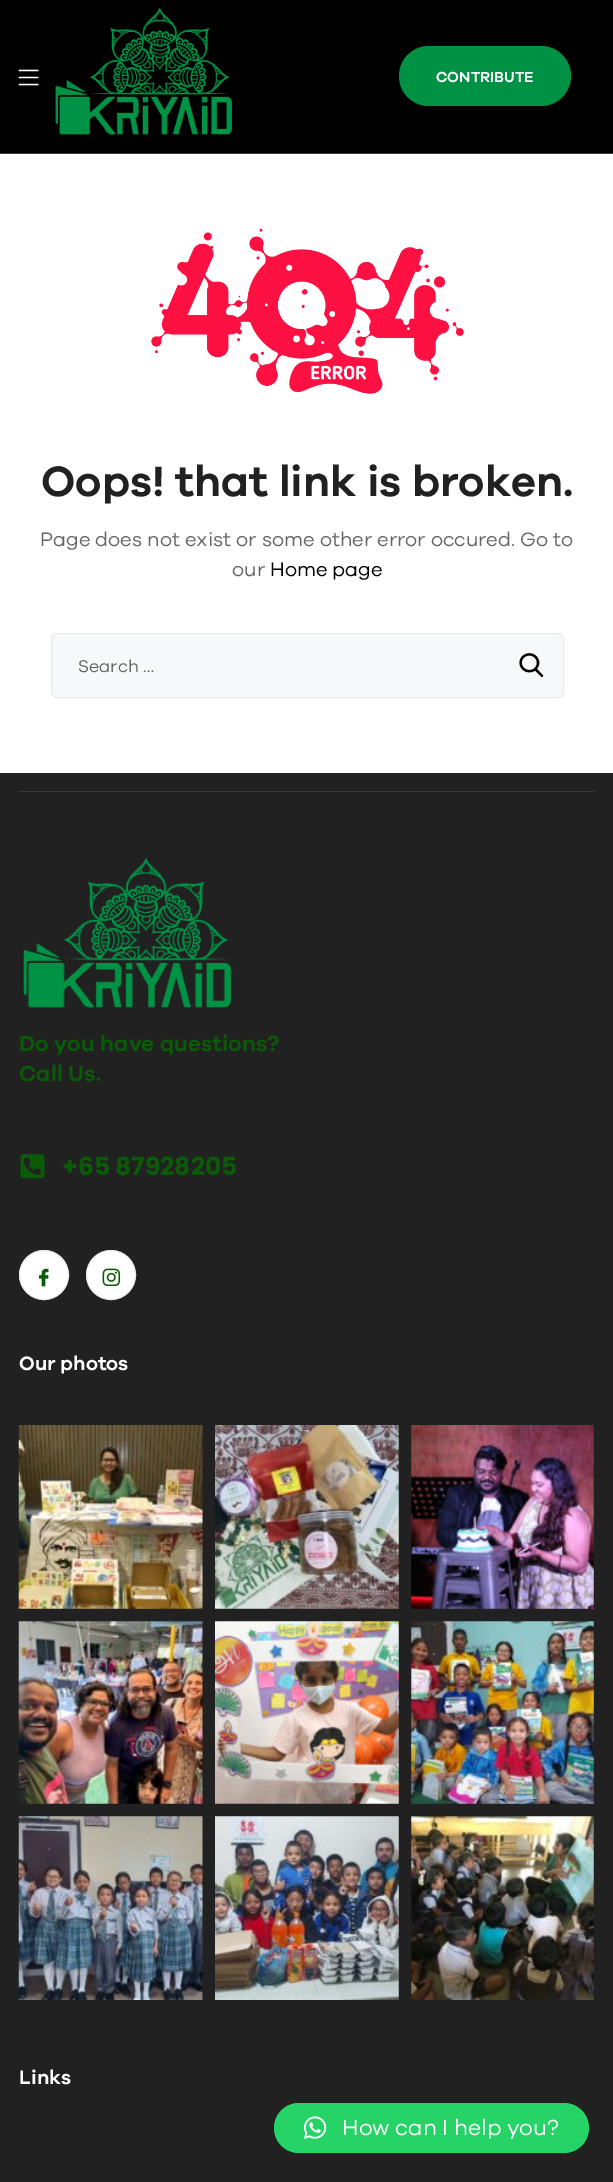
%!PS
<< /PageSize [613 2182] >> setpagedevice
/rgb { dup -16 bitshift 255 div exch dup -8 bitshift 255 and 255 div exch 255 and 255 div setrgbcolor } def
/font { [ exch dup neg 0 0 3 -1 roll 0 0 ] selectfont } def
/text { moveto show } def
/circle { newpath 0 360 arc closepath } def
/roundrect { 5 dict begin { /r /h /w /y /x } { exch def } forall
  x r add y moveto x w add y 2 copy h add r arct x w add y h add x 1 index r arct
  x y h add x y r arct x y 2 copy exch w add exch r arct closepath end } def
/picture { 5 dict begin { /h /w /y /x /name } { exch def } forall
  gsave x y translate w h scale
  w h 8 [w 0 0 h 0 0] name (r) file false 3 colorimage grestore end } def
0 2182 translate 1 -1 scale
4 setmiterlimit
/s1 { /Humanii-Medium 15 font 16#FFFFFF rgb } def
/s2 { /Humanii-Medium 43.75 font 16#212121 rgb } def
/s3 { /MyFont-Medium 20 font 16#666666 rgb } def
/s4 { /MyFont-Medium 20 font 16#000000 rgb } def
/s5 { /MyFont-Medium 17.5 font 16#666666 rgb } def
/s6 { /Humanii-Medium 22.5 font 16#0A5A08 rgb } def
/s7 { /Poppins-Bold 25 font 16#0A5A08 rgb } def
/s8 { /Humanii-Medium 20 font 16#FFFFFF rgb } def
/s9 { /MyFont-Medium 22.5 font 16#FFFFFF rgb } def
16#FFFFFF rgb
0 0 613 2182 rectfill
16#000000 rgb
0 0 613 153 rectfill
16#3F3F3F rgb
0 153 613 1 rectfill
(pic1.raw) 18 69 21 17 picture
(pic2.raw) 55 7 177 128 picture
16#009244 rgb
399 46 172 60 30 roundrect fill
s1
(CONTRIBUTE) 436 82 text
(pic3.raw) 151 228 313 166 picture
s2
(Oops! that link is broken.) 41 496 text
s3
(Page does not exist or some other error occured. Go to) 40 546 text
(our) 232 576 text
s4
(Home page) 270 576 text
16#F7F8FA rgb
51.5 633.5 512 64 5.5 roundrect gsave fill grestore
16#EBEBEB rgb
stroke
s5
(Search …) 78 672 text
(pic4.raw) 519 653 25 24 picture
16#212121 rgb
0 773 613 1409 rectfill
16#383838 rgb
19 791 576 1 rectfill
(pic5.raw) 23 857 208 151 picture
s6
(Do you have questions?) 19 1051 text
(Call Us.) 19 1081 text
(pic6.raw) 20 1154 25 25 picture
s7
(+65 87928205) 62 1175 text
16#FFFFFF rgb
44 1275 24.5 circle gsave fill grestore
16#EAEBF1 rgb
stroke
(pic7.raw) 39 1268 10 19 picture
16#FFFFFF rgb
111 1275 24.5 circle gsave fill grestore
16#EAEBF1 rgb
stroke
(pic8.raw) 102 1268 19 19 picture
s8
(Our photos) 19 1370 text
(pic9.raw) 18 1425 185 184 picture
(pic10.raw) 215 1425 184 184 picture
(pic11.raw) 411 1425 183 184 picture
(pic12.raw) 18 1621 185 183 picture
(pic13.raw) 215 1621 184 183 picture
(pic14.raw) 411 1621 183 183 picture
(pic15.raw) 18 1816 185 184 picture
(pic16.raw) 215 1816 184 184 picture
(pic17.raw) 411 1816 183 184 picture
(Links) 19 2084 text
16#25D366 rgb
274 2103 315 50 25 roundrect fill
(pic18.raw) 303 2116 24 23 picture
s9
(How can I help you?) 342 2135 text
showpage
